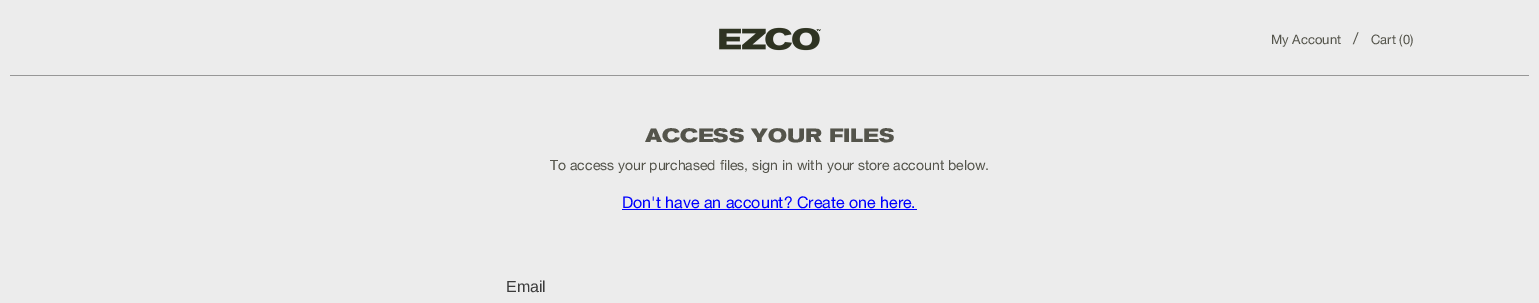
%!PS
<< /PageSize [1539 303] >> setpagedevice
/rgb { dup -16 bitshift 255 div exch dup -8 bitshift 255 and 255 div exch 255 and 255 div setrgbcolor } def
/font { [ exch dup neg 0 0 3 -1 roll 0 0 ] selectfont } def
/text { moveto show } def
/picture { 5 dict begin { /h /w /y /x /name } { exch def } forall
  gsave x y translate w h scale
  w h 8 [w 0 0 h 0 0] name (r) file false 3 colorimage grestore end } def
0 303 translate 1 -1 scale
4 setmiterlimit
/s1 { /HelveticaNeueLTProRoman-Regular 13 font 16#54544B rgb } def
/s2 { /HelveticaNeueLTProRoman-Regular 16 font 16#54544B rgb } def
/s3 { /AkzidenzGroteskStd-Bold 19 font 16#54544B rgb } def
/s4 { /HelveticaNeueLTProRoman-Regular 14 font 16#54544B rgb } def
/s5 { /HelveticaNeueLTProRoman-Regular 16 font 16#0000FF rgb } def
/s6 { /LiberationSans-Regular 16 font 16#3B3B3B rgb } def
16#ECECEC rgb
0 0 1539 303 rectfill
16#979797 rgb
10 75 1519 1 rectfill
(pic1.raw) 719 27 102 24 picture
s1
(My Account) 1271 44 text
s2
(/) 1353 44 text
s1
(Cart \(0\)) 1371 44 text
s3
(ACCESS YOUR FILES) 645 142 text
s4
(To access your purchased files, sign in with your store account below.) 550 170 text
s5
(Don't have an account? Create one here.) 622 208 text
622 209 295 1 rectfill
s6
(Email) 506 292 text
showpage
